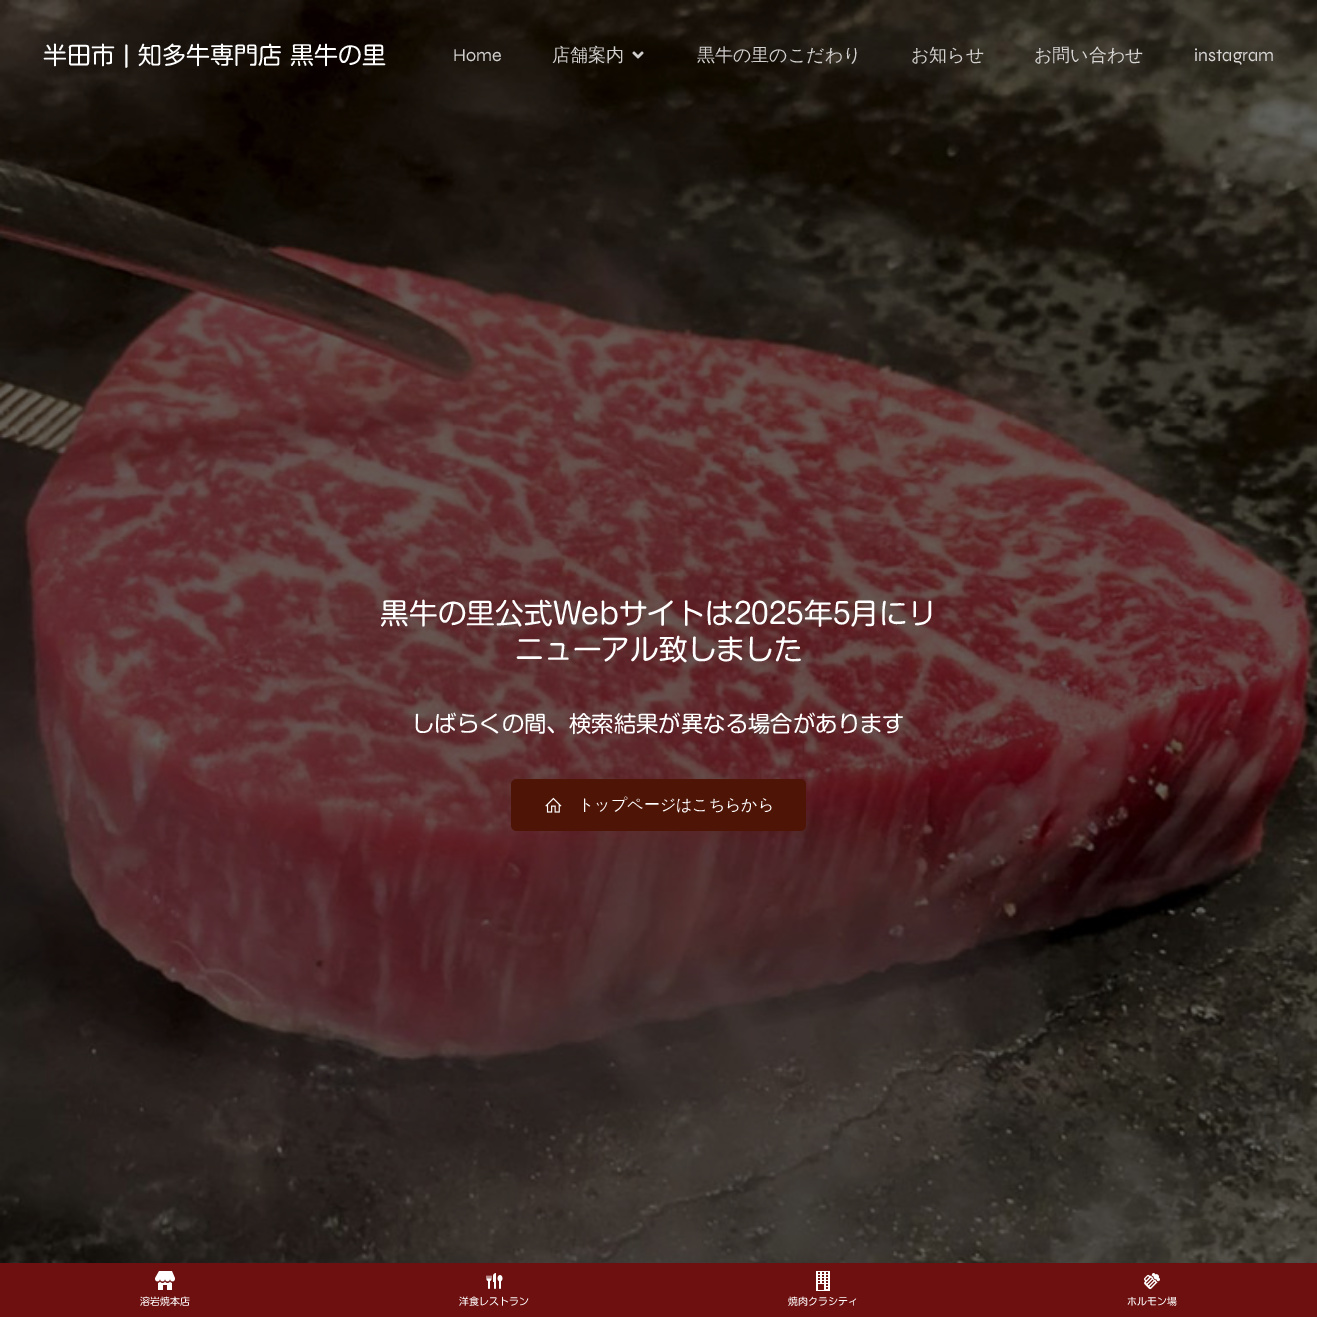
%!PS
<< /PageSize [1317 1317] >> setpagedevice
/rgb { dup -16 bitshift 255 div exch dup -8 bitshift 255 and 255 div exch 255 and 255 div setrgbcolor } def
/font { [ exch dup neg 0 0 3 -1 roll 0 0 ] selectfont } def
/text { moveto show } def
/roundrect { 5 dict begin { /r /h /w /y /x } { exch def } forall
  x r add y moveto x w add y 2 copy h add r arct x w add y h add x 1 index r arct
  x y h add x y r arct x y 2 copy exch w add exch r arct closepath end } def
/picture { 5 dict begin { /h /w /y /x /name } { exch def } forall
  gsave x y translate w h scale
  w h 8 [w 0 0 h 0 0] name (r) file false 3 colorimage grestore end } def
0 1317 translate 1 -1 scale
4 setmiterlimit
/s1 { /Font-Regular 24 font 16#FFFFFF rgb } def
/s2 { /Syne-Regular 18 font 16#D2D0CF rgb } def
/s3 { /WenQuanYiZenHei-Medium 18 font 16#D2D0CF rgb } def
/s4 { /WenQuanYiZenHei-Medium 18 font 16#D7D6D4 rgb } def
/s5 { /Syne-Regular 18 font 16#D7D6D4 rgb } def
/s6 { /Font-Regular 28.75 font 16#FFFFFF rgb } def
/s7 { /Font-Regular 22.4 font 16#FFFFFF rgb } def
/s8 { /WenQuanYiZenHei-Medium 16 font 16#FFFFFF rgb } def
/s9 { /Font-Regular 10 font 16#FFFFFF rgb } def
16#FFFFFF rgb
0 0 1317 1317 rectfill
(pic2.raw) 0 0 1317 1263 picture
s1
(半田市 | 知多牛専門店 黒牛の里) 43 64 text
s2
(Home) 453 61 text
s3
(店舗案内) 552 61 text
(pic1.raw) 632 51 12 8 picture
(黒牛の里のこだわり) 697 61 text
(お知らせ) 911 61 text
s4
(お問い合わせ) 1034 61 text
s5
(instagram) 1194 61 text
s6
(黒牛の里公式Webサイトは2025年5月にリ) 380 624 text
(ニューアル致しました) 515 660 text
s7
(しばらくの間、検索結果が異なる場合があります) 412 732 text
16#4E1406 rgb
511 779 295 52 6 roundrect fill
(pic3.raw) 545 797 17 16 picture
s8
(トップページはこちらから) 578 810 text
16#6F1010 rgb
0 1263 1317 54 rectfill
(pic4.raw) 155 1271 20 19 picture
s9
(溶岩焼本店) 140 1305 text
(pic5.raw) 486 1273 17 16 picture
(洋食レストラン) 459 1305 text
(pic6.raw) 816 1271 14 20 picture
(焼肉クラシティ) 788 1305 text
(pic7.raw) 1144 1273 16 17 picture
(ホルモン場) 1127 1305 text
showpage
